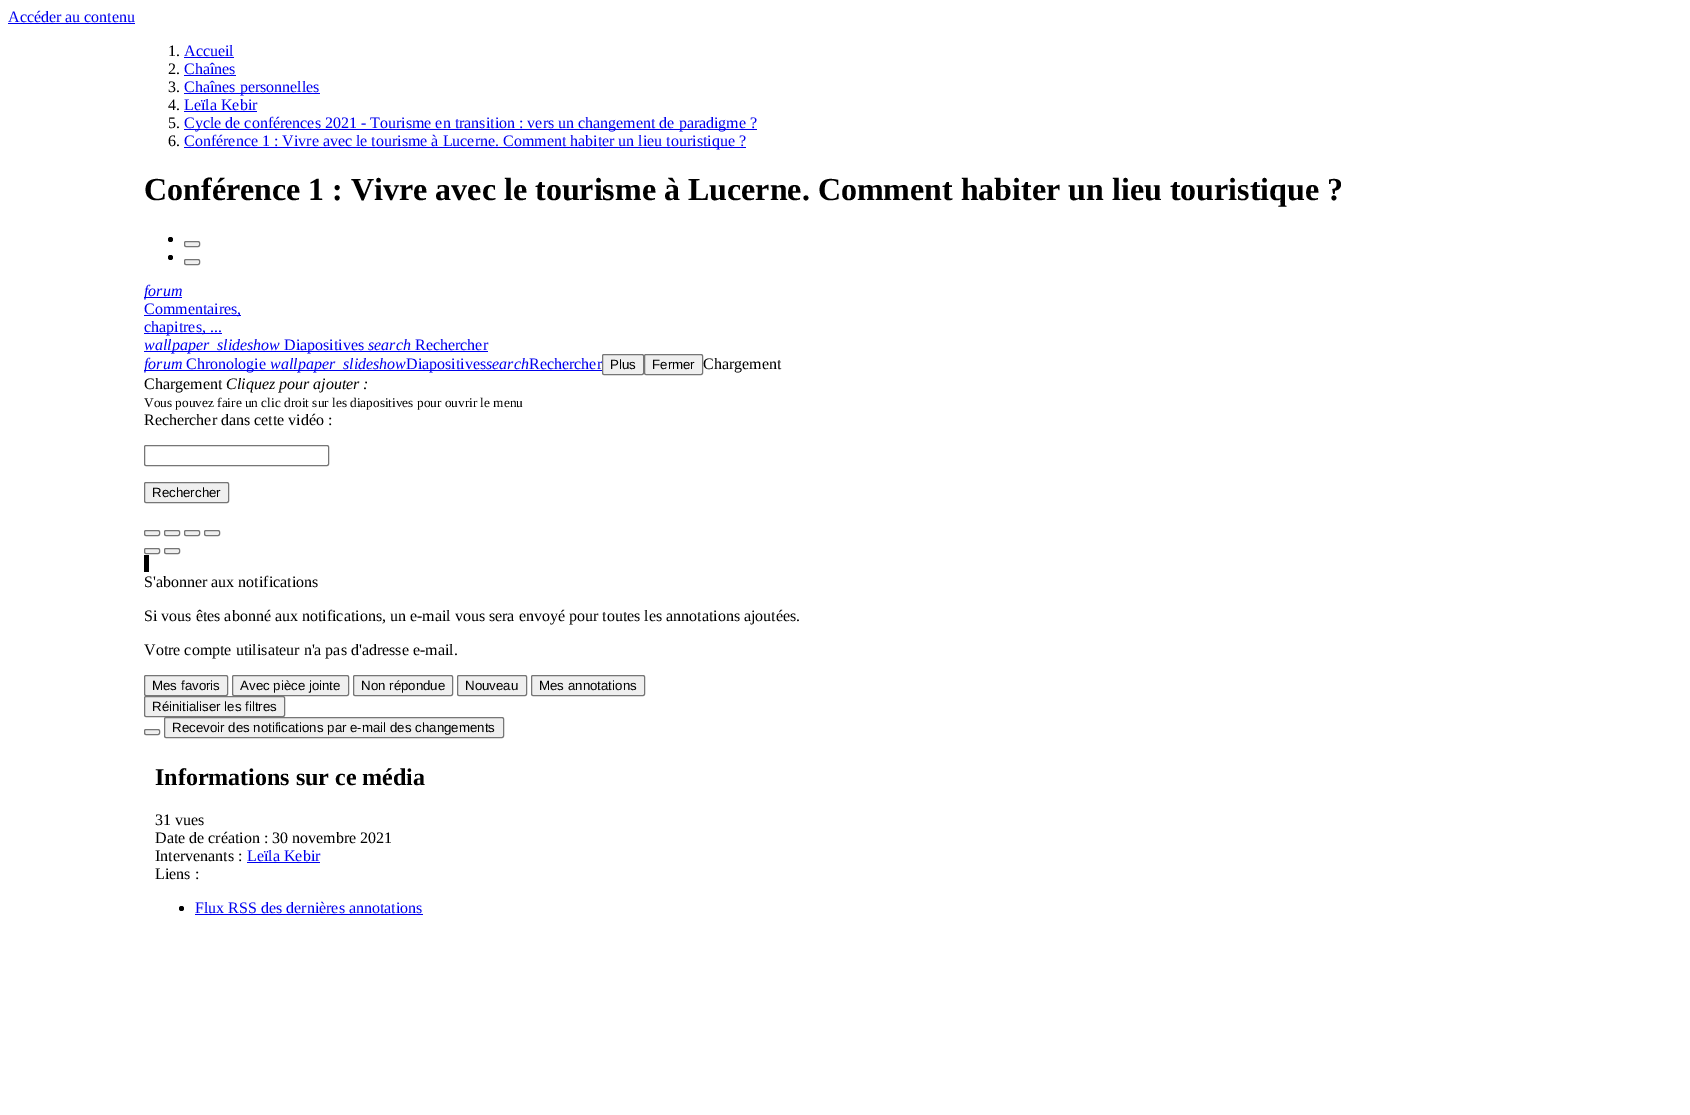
%!PS
<< /PageSize [1690 1115] >> setpagedevice
/rgb { dup -16 bitshift 255 div exch dup -8 bitshift 255 and 255 div exch 255 and 255 div setrgbcolor } def
/font { [ exch dup neg 0 0 3 -1 roll 0 0 ] selectfont } def
/text { moveto show } def
/circle { newpath 0 360 arc closepath } def
/roundrect { 5 dict begin { /r /h /w /y /x } { exch def } forall
  x r add y moveto x w add y 2 copy h add r arct x w add y h add x 1 index r arct
  x y h add x y r arct x y 2 copy exch w add exch r arct closepath end } def
0 1115 translate 1 -1 scale
4 setmiterlimit
/s1 { /LiberationSerif-Regular 16 font 16#0000EE rgb } def
/s2 { /LiberationSerif-Regular 16 font 16#000000 rgb } def
/s3 { /LiberationSerif-Bold 32 font 16#000000 rgb } def
/s4 { /LiberationSerif-Italic 16 font 16#0000EE rgb } def
/s5 { /LiberationSans-Regular 13.3 font 16#000000 rgb } def
/s6 { /LiberationSerif-Italic 16 font 16#000000 rgb } def
/s7 { /LiberationSerif-Regular 13.3 font 16#000000 rgb } def
/s8 { /LiberationSerif-Bold 24 font 16#000000 rgb } def
16#FFFFFF rgb
0 0 1690 1115 rectfill
s1
(Accéder au contenu) 8 22 text
8 23 127 1 rectfill
s2
(1.) 168 56 text
s1
(Accueil) 184 56 text
184 57 50 1 rectfill
s2
(2.) 168 74 text
s1
(Chaînes) 184 74 text
184 75 52 1 rectfill
s2
(3.) 168 92 text
16#0000EE rgb
184 93 136 1 rectfill
(Chaînes personnelles) 184 92 text
s2
(4.) 168 110 text
s1
(Leïla Kebir) 184 110 text
184 111 73 1 rectfill
s2
(5.) 168 128 text
16#0000EE rgb
184 129 573 1 rectfill
(Cycle de conférences 2021 - Tourisme en transition : vers un changement de paradigme ?) 184 128 text
s2
(6.) 168 146 text
16#0000EE rgb
184 147 562 1 rectfill
(Conférence 1 : Vivre avec le tourisme à Lucerne. Comment habiter un lieu touristique ?) 184 146 text
s3
(Conférence 1 : Vivre avec le tourisme à Lucerne. Comment habiter un lieu touristique ?) 144 200 text
170.5 239.5 2.5 circle fill
16#EFEFEF rgb
184.5 241.5 15 5 1.5 roundrect gsave fill grestore
16#767676 rgb
stroke
16#000000 rgb
170.5 257.5 2.5 circle fill
16#EFEFEF rgb
184.5 259.5 15 5 1.5 roundrect gsave fill grestore
16#767676 rgb
stroke
16#0000EE rgb
144 297 38 1 rectfill
s4
(forum) 144 296 text
144 315 97 1 rectfill
s1
(Commentaires,) 144 314 text
144 333 78 1 rectfill
(chapitres, ...) 144 332 text
144 351 344 1 rectfill
s4
(wallpaper_slideshow) 144 350 text
s1
(Diapositives) 284 350 text
s4
(search) 368 350 text
s1
(Rechercher) 415 350 text
144 370 262 1 rectfill
s4
(forum) 144 369 text
s1
(Chronologie) 186 369 text
s4
(wallpaper_slideshow) 270 369 text
406 370 196 1 rectfill
s1
(Diapositives) 406 369 text
s4
(search) 486 369 text
s1
(Rechercher) 529 369 text
16#EFEFEF rgb
602.5 354.5 41 20 1.5 roundrect gsave fill grestore
16#767676 rgb
stroke
s5
(Plus) 610 369 text
16#EFEFEF rgb
644.5 354.5 58 20 1.5 roundrect gsave fill grestore
16#767676 rgb
stroke
s5
(Fermer) 652 369 text
s2
(Chargement) 703 369 text
(Chargement) 144 389 text
s6
(Cliquez pour ajouter :) 226 389 text
s7
(Vous pouvez faire un clic droit sur les diapositives pour ouvrir le menu) 144 407 text
s2
(Rechercher dans cette vidéo :) 144 425 text
16#767676 rgb
144.5 445.5 184 20 1.5 roundrect stroke
16#EFEFEF rgb
144.5 482.5 84 20 1.5 roundrect gsave fill grestore
16#767676 rgb
stroke
s5
(Rechercher) 152 497 text
16#EFEFEF rgb
144.5 530.5 15 5 1.5 roundrect gsave fill grestore
16#767676 rgb
stroke
16#EFEFEF rgb
164.5 530.5 15 5 1.5 roundrect gsave fill grestore
16#767676 rgb
stroke
16#EFEFEF rgb
184.5 530.5 15 5 1.5 roundrect gsave fill grestore
16#767676 rgb
stroke
16#EFEFEF rgb
204.5 530.5 15 5 1.5 roundrect gsave fill grestore
16#767676 rgb
stroke
16#EFEFEF rgb
144.5 548.5 15 5 1.5 roundrect gsave fill grestore
16#767676 rgb
stroke
16#EFEFEF rgb
164.5 548.5 15 5 1.5 roundrect gsave fill grestore
16#767676 rgb
stroke
16#000000 rgb
144 555 5 17 rectfill
s2
(S'abonner aux notifications) 144 587 text
(Si vous êtes abonné aux notifications, un e-mail vous sera envoyé pour toutes les annotations ajoutées.) 144 621 text
(Votre compte utilisateur n'a pas d'adresse e-mail.) 144 655 text
16#EFEFEF rgb
144.5 675.5 83 20 1.5 roundrect gsave fill grestore
16#767676 rgb
stroke
s5
(Mes favoris) 152 690 text
16#EFEFEF rgb
232.5 675.5 116 20 1.5 roundrect gsave fill grestore
16#767676 rgb
stroke
s5
(Avec pièce jointe) 240 690 text
16#EFEFEF rgb
353.5 675.5 99 20 1.5 roundrect gsave fill grestore
16#767676 rgb
stroke
s5
(Non répondue) 361 690 text
16#EFEFEF rgb
457.5 675.5 69 20 1.5 roundrect gsave fill grestore
16#767676 rgb
stroke
s5
(Nouveau) 465 690 text
16#EFEFEF rgb
531.5 675.5 113 20 1.5 roundrect gsave fill grestore
16#767676 rgb
stroke
s5
(Mes annotations) 539 690 text
16#EFEFEF rgb
144.5 696.5 140 20 1.5 roundrect gsave fill grestore
16#767676 rgb
stroke
s5
(Réinitialiser les filtres) 152 711 text
16#EFEFEF rgb
144.5 729.5 15 5 1.5 roundrect gsave fill grestore
16#767676 rgb
stroke
16#EFEFEF rgb
164.5 717.5 339 20 1.5 roundrect gsave fill grestore
16#767676 rgb
stroke
s5
(Recevoir des notifications par e-mail des changements) 172 732 text
s8
(Informations sur ce média) 155 785 text
s2
(31 vues) 155 825 text
(Date de création : 30 novembre 2021) 155 843 text
(Intervenants :) 155 861 text
s1
(Leïla Kebir) 247 861 text
247 862 73 1 rectfill
s2
(Liens :) 155 879 text
181.5 908.5 2.5 circle fill
s1
(Flux RSS des dernières annotations) 195 913 text
195 914 228 1 rectfill
showpage
